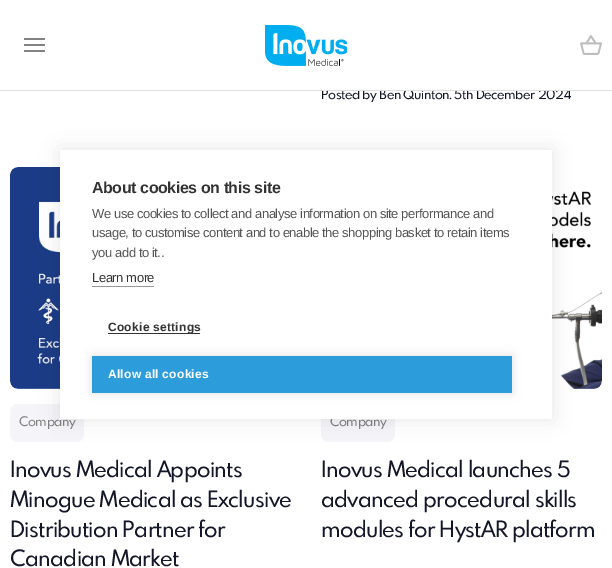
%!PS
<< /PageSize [612 568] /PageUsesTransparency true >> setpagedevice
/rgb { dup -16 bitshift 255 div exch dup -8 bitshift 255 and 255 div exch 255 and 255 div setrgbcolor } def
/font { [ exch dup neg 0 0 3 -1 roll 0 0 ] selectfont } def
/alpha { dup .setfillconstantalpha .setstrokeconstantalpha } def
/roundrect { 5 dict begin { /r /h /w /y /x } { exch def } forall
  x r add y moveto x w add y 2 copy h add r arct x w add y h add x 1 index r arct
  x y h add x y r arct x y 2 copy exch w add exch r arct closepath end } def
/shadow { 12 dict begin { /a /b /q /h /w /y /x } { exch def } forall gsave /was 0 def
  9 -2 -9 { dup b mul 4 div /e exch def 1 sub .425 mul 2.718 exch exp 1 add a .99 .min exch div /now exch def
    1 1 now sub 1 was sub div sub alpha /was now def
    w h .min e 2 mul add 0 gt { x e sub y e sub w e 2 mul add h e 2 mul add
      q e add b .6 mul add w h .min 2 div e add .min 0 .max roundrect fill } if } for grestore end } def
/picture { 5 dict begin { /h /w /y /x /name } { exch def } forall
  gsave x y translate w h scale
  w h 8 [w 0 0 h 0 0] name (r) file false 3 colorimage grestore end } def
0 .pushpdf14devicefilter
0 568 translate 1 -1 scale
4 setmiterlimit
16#FFFFFF rgb
0 0 612 568 rectfill
/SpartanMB-Medium 13 font
16#141729 rgb
321 99 moveto -0.4 0 (Posted by Ben Quinton. 5th December 2024) ashow
16#FFFFFF rgb
322 88 248 2 rectfill
16#E0E0E0 rgb
0 90 612 1 rectfill
16#828282 rgb
24 44 21 2 rectfill
24 38 21 2 rectfill
24 50 21 2 rectfill
(pic1.raw) 265 25 82 41 picture
(pic2.raw) 580 35 22 20 picture
(pic3.raw) 10 167 50 222 picture
16#F4F4F9 rgb
10 404 74 38 8 roundrect fill
16#828282 rgb
19 426 moveto -0.4 0 (Company) ashow
/SpartanMB-Medium 22 font
16#141729 rgb
10 477 moveto -0.65 0 (Inovus Medical Appoints) ashow
10 507 moveto -0.65 0 (Minogue Medical as Exclusive) ashow
10 537 moveto -0.65 0 (Distribution Partner for) ashow
10 566 moveto -0.65 0 (Canadian Market) ashow
(pic4.raw) 552 191 50 198 picture
16#F4F4F9 rgb
321 404 74 38 8 roundrect fill
/SpartanMB-Medium 13 font
16#828282 rgb
330 426 moveto -0.4 0 (Company) ashow
/SpartanMB-Medium 22 font
16#141729 rgb
321 477 moveto -0.65 0 (Inovus Medical launches 5) ashow
321 507 moveto -0.65 0 (advanced procedural skills) ashow
321 537 moveto -0.65 0 (modules for HystAR platform) ashow
16#000000 rgb
60 150 492 269 0 10 0.1 shadow
16#FFFFFF rgb
60 150 492 269 rectfill
/LiberationSans-Bold 16 font
16#333333 rgb
92 193 moveto -0.42 0 (About cookies on this site) ashow
/LiberationSans-Regular 13 font
16#555555 rgb
92 218 moveto -0.42 0 (We use cookies to collect and analyse information on site performance and) ashow
92 237 moveto -0.42 0 (usage, to customise content and to enable the shopping basket to retain items) ashow
92 257 moveto -0.42 0 (you add to it..) ashow
16#333333 rgb
92 282 moveto -0.42 0 (Learn more) ashow
16#999999 rgb
92 286 62 1 rectfill
16#333333 rgb
108 333 92 1 rectfill
/LiberationSans-Bold 12 font
108 331 moveto 0.25 0 (Cookie settings) ashow
16#000000 rgb
92 356 420 37 0 5 0.12 shadow
16#2D9CDB rgb
92 356 420 37 rectfill
16#FFFFFF rgb
108 378 moveto 0.25 0 (Allow all cookies) ashow
.poppdf14devicefilter showpage
